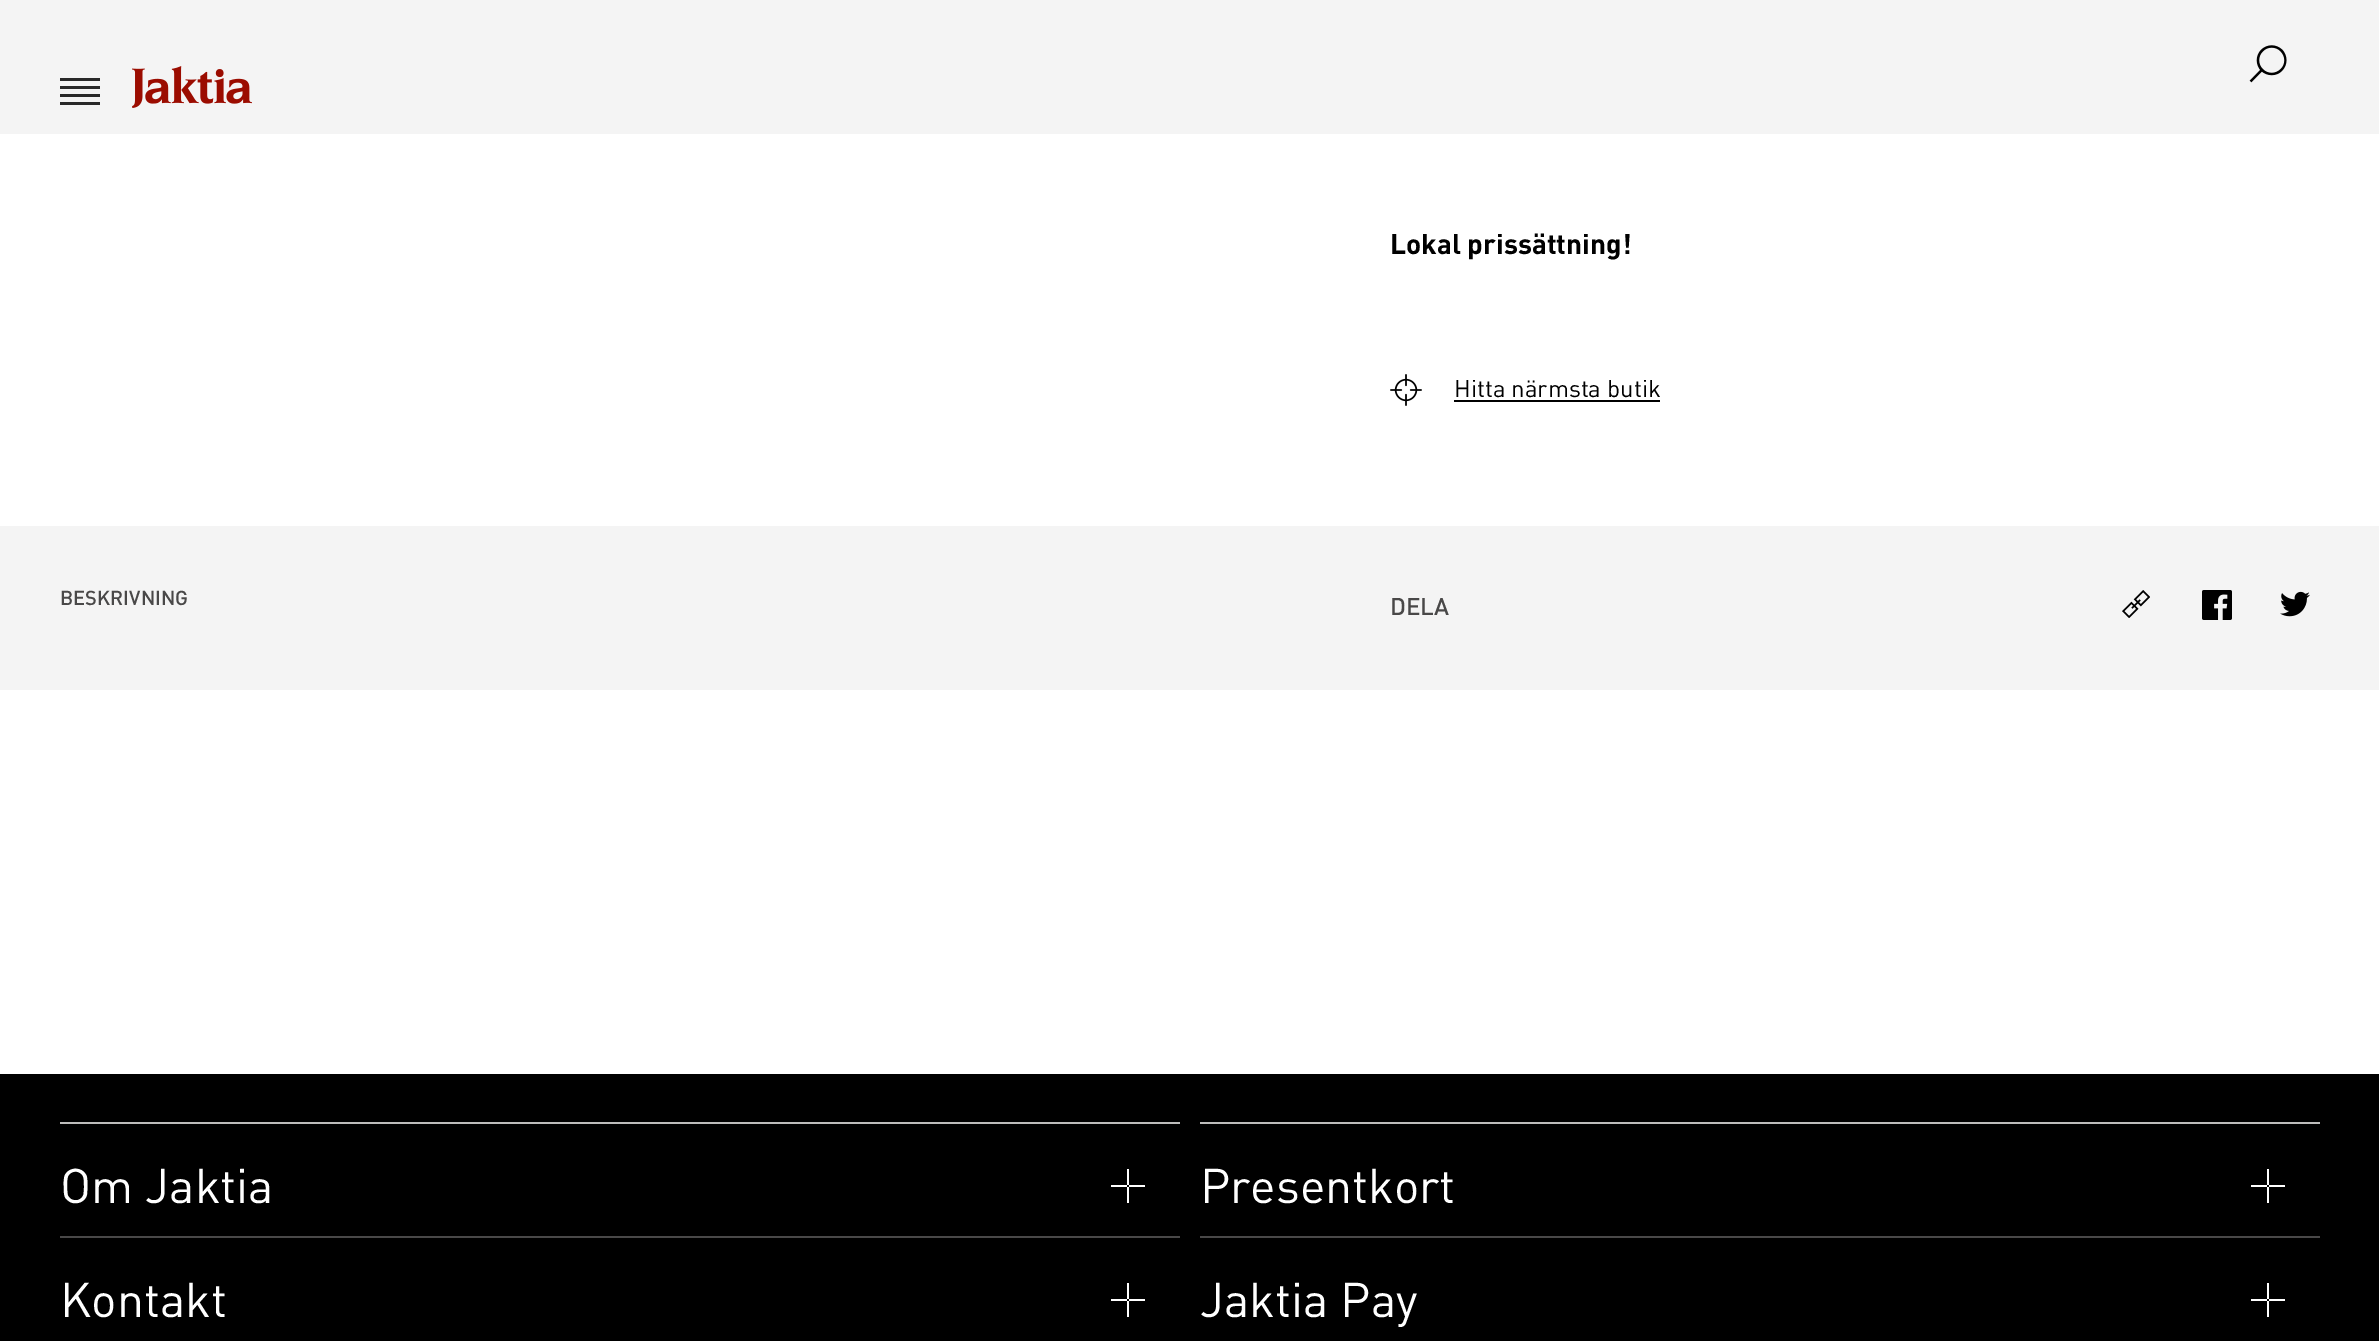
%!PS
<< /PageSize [2379 1341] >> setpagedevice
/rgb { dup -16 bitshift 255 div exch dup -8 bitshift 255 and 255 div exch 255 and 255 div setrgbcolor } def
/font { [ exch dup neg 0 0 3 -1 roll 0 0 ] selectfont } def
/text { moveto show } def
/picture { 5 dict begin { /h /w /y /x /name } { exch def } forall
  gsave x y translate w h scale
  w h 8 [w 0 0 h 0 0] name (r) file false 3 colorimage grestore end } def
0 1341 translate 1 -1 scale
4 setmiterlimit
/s1 { /DIN-Bold 28 font 16#000000 rgb } def
/s2 { /DIN-Regular 24 font 16#000000 rgb } def
/s3 { /DIN-Medium 20 font 16#494848 rgb } def
/s4 { /DIN-Medium 24 font 16#494848 rgb } def
/s5 { /DIN-Regular 48 font 16#FFFFFF rgb } def
16#FFFFFF rgb
0 0 2379 1341 rectfill
16#F4F4F4 rgb
0 0 2379 134 rectfill
16#292929 rgb
60 78 40 3 rectfill
60 86 40 3 rectfill
60 94 40 3 rectfill
60 102 40 3 rectfill
(pic1.raw) 132 66 120 42 picture
(pic2.raw) 2249 45 38 38 picture
s1
(Lokal prissättning!) 1390 254 text
(pic3.raw) 1390 374 32 32 picture
s2
(Hitta närmsta butik) 1454 397 text
1454 400 206 2 rectfill
16#F4F4F4 rgb
0 526 2379 164 rectfill
s3
(BESKRIVNING) 60 605 text
s4
(DELA) 1390 615 text
(pic4.raw) 2122 590 28 28 picture
(pic5.raw) 2202 590 30 30 picture
(pic6.raw) 2280 591 30 26 picture
16#000000 rgb
0 1074 2379 267 rectfill
16#BDBCBB rgb
60 1122 1120 2 rectfill
16#494848 rgb
60 1236 1120 2 rectfill
s5
(Om Jaktia) 60 1203 text
1127 1169 2 16 rectfill
1127 1187 2 16 rectfill
1111 1185 16 2 rectfill
1129 1185 16 2 rectfill
(Kontakt) 60 1317 text
1127 1283 2 16 rectfill
1127 1301 2 16 rectfill
1111 1299 16 2 rectfill
1129 1299 16 2 rectfill
16#BDBCBB rgb
1200 1122 1120 2 rectfill
16#494848 rgb
1200 1236 1120 2 rectfill
s5
(Presentkort) 1200 1203 text
2267 1169 2 16 rectfill
2267 1187 2 16 rectfill
2251 1185 16 2 rectfill
2269 1185 16 2 rectfill
(Jaktia Pay) 1200 1317 text
2267 1283 2 16 rectfill
2267 1301 2 16 rectfill
2251 1299 16 2 rectfill
2269 1299 16 2 rectfill
showpage
